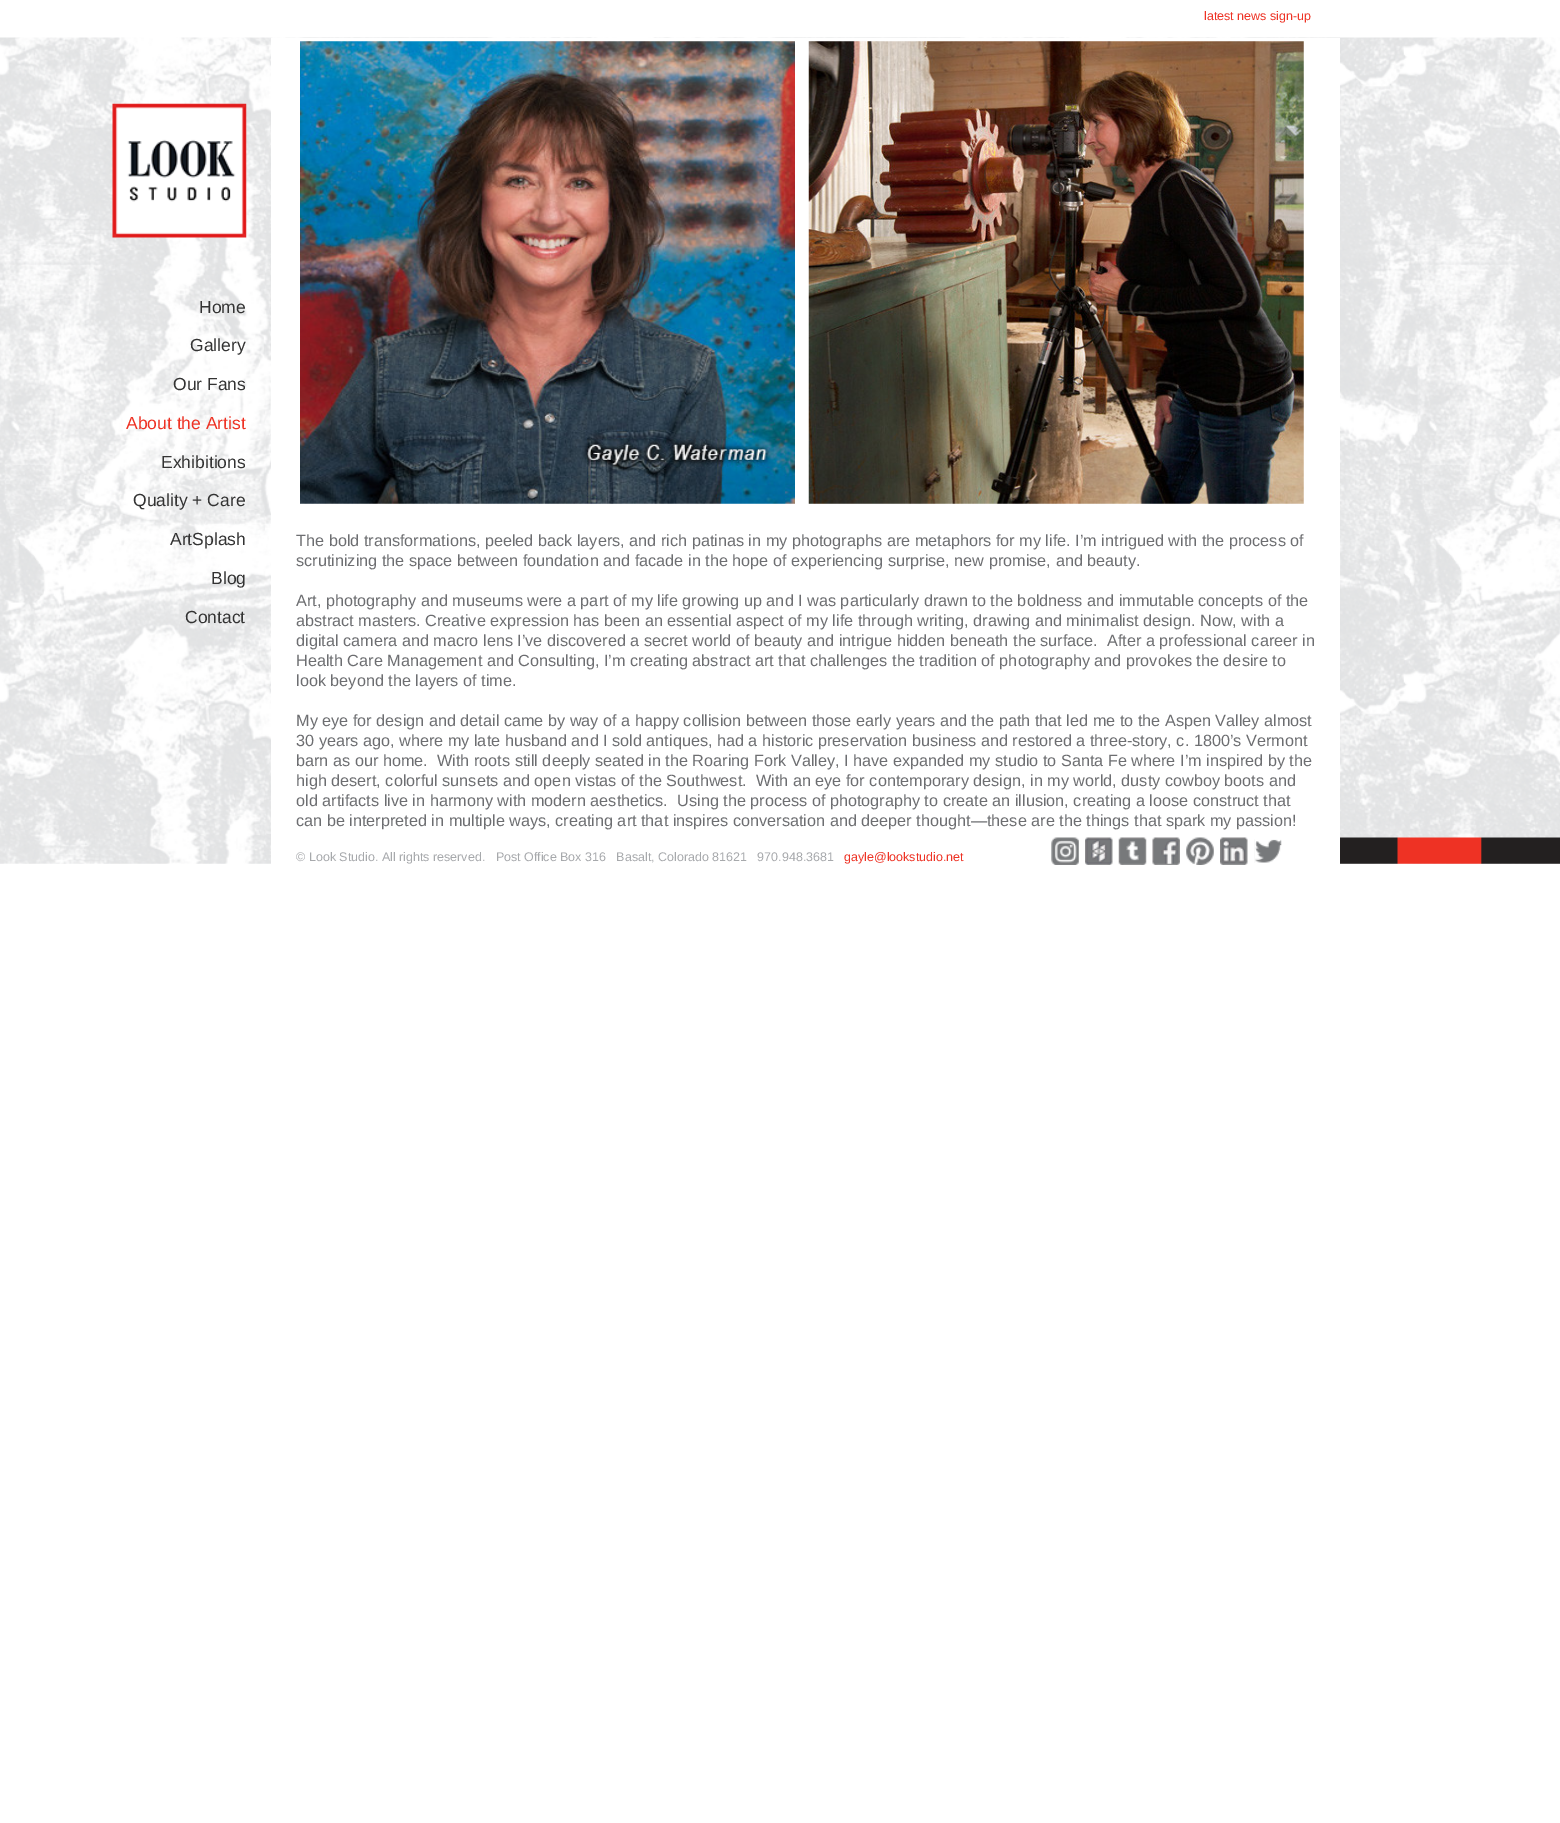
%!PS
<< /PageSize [1560 1823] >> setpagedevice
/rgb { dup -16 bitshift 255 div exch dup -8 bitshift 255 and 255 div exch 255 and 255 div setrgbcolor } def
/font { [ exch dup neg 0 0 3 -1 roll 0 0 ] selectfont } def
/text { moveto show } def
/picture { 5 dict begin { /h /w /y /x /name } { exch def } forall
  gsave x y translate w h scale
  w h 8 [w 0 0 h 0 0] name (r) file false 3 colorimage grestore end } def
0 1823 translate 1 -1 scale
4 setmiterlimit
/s1 { /LiberationSans-Regular 12.5 font 16#EE3224 rgb } def
/s2 { /LiberationSans-Regular 17.5 font 16#333333 rgb } def
/s3 { /LiberationSans-Regular 17.5 font 16#EE3224 rgb } def
/s4 { /LiberationSans-Regular 16.25 font 16#6D6E71 rgb } def
/s5 { /LiberationSans-Regular 12.5 font 16#A7A9AC rgb } def
16#FFFFFF rgb
0 0 1560 1823 rectfill
s1
(latest news sign-up) 1204 20 text
(pic1.raw) 0 37 1560 827 picture
(pic2.raw) 1340 837 220 27 picture
(pic3.raw) 112 103 135 135 picture
s2
(Home) 199 313 text
(Gallery) 190 351 text
(Our Fans) 173 390 text
s3
(About the Artist) 126 429 text
s2
(Exhibitions) 161 468 text
(Quality + Care) 133 506 text
(ArtSplash) 170 545 text
(Blog) 211 584 text
(Contact) 185 623 text
16#FFFFFF rgb
271 38 1069 826 rectfill
(pic4.raw) 300 41 495 463 picture
(pic5.raw) 808 41 496 463 picture
s4
(The bold transformations, peeled back layers, and rich patinas in my photographs are metaphors for my life. I’m intrigued with the process of) 296 546 text
(scrutinizing the space between foundation and facade in the hope of experiencing surprise, new promise, and beauty.) 296 566 text
(Art, photography and museums were a part of my life growing up and I was particularly drawn to the boldness and immutable concepts of the) 296 606 text
(abstract masters. Creative expression has been an essential aspect of my life through writing, drawing and minimalist design. Now, with a) 296 626 text
(digital camera and macro lens I’ve discovered a secret world of beauty and intrigue hidden beneath the surface.  After a professional career in) 296 646 text
(Health Care Management and Consulting, I’m creating abstract art that challenges the tradition of photography and provokes the desire to) 296 666 text
(look beyond the layers of time.) 296 686 text
(My eye for design and detail came by way of a happy collision between those early years and the path that led me to the Aspen Valley almost) 296 726 text
(30 years ago, where my late husband and I sold antiques, had a historic preservation business and restored a three-story, c. 1800’s Vermont) 296 746 text
(barn as our home.  With roots still deeply seated in the Roaring Fork Valley, I have expanded my studio to Santa Fe where I’m inspired by the) 296 766 text
(high desert, colorful sunsets and open vistas of the Southwest.  With an eye for contemporary design, in my world, dusty cowboy boots and) 296 786 text
(old artifacts live in harmony with modern aesthetics.  Using the process of photography to create an illusion, creating a loose construct that) 296 806 text
(can be interpreted in multiple ways, creating art that inspires conversation and deeper thought—these are the things that spark my passion!) 296 826 text
s5
(© Look Studio. All rights reserved.   Post Office Box 316   Basalt, Colorado 81621   970.948.3681) 296 861 text
s1
(gayle@lookstudio.net) 844 861 text
(pic6.raw) 1051 837 28 28 picture
(pic7.raw) 1085 837 28 28 picture
(pic8.raw) 1118 837 29 28 picture
(pic9.raw) 1152 837 28 28 picture
(pic10.raw) 1186 837 28 28 picture
(pic11.raw) 1220 837 28 28 picture
(pic12.raw) 1254 839 28 24 picture
showpage
